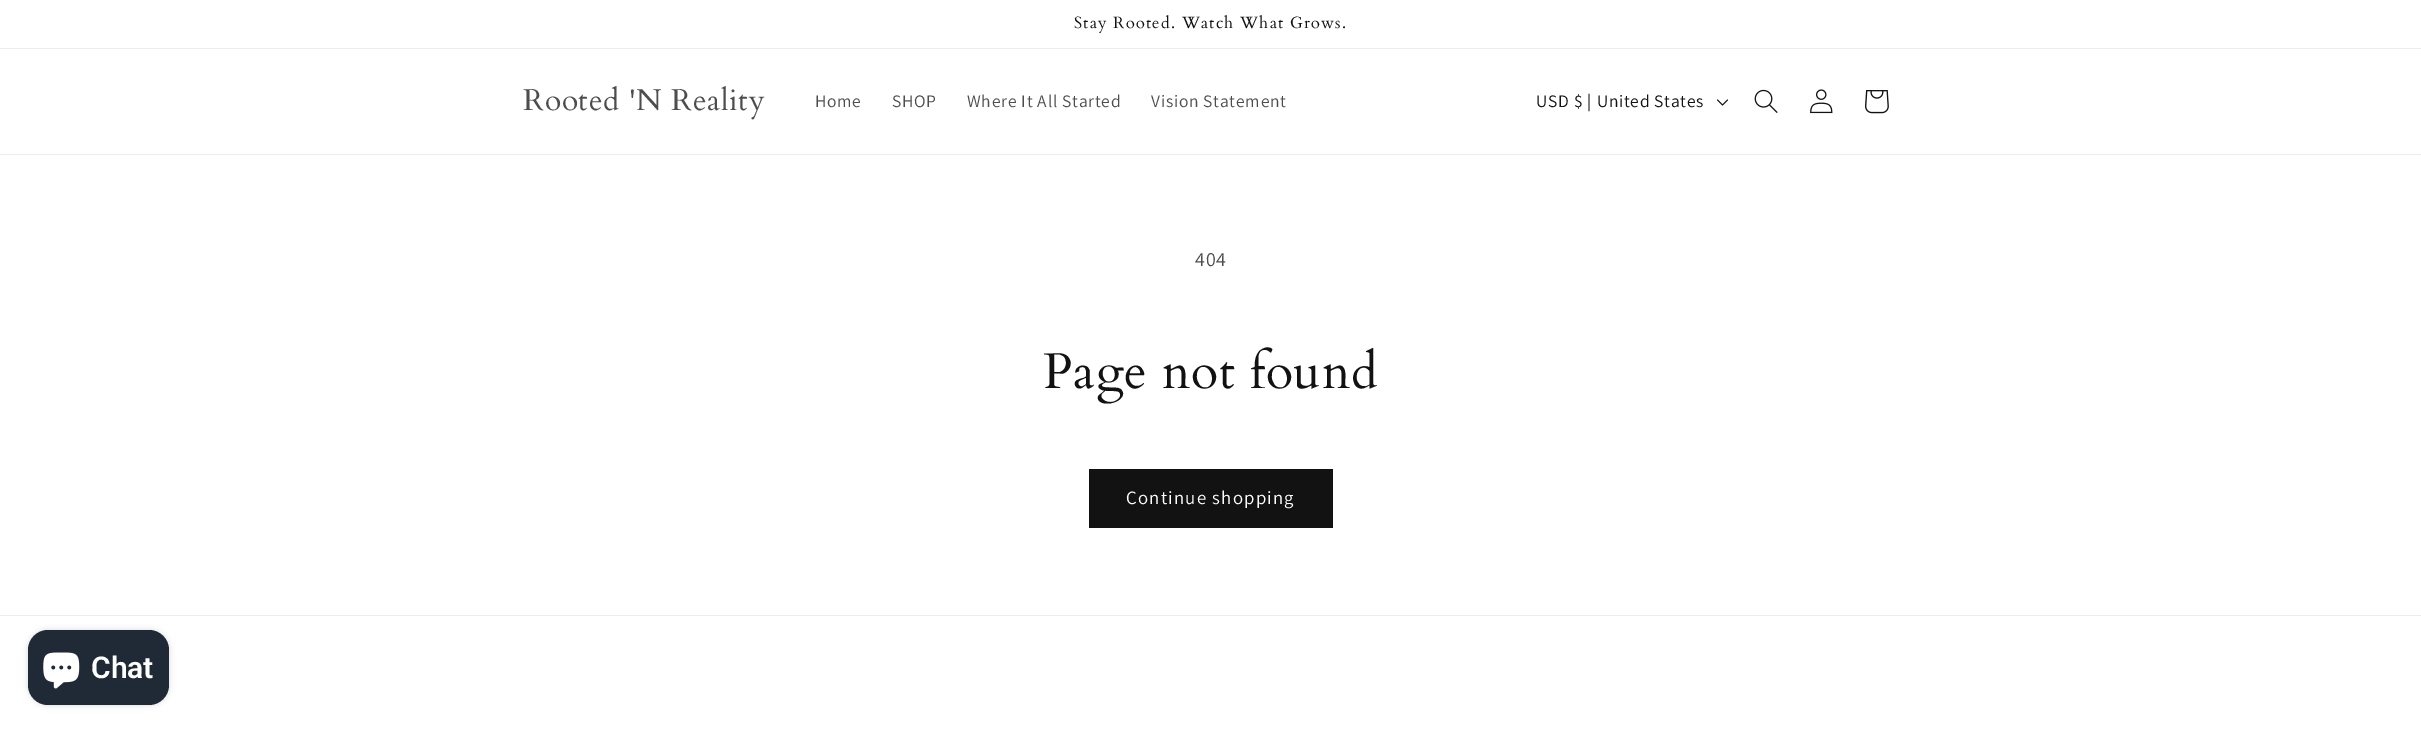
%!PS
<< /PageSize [2421 731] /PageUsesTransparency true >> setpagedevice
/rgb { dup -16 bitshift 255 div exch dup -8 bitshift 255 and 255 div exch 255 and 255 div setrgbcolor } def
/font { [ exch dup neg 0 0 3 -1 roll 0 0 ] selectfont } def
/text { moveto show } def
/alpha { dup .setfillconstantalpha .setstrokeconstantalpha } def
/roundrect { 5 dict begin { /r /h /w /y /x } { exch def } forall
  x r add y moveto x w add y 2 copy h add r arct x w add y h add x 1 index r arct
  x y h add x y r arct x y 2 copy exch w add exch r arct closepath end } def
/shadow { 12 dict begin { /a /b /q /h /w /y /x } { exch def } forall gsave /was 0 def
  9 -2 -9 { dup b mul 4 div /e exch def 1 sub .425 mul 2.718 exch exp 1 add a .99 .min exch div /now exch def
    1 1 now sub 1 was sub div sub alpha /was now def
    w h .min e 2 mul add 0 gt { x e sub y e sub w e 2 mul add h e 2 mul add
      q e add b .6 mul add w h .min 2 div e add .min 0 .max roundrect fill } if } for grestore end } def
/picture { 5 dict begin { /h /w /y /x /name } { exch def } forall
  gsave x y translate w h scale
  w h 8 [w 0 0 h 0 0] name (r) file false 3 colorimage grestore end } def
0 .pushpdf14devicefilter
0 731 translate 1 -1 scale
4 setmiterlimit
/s1 { /Roboto-SemiBold 30 font 16#FFFFFF rgb } def
16#FFFFFF rgb
0 0 2421 731 rectfill
16#ECECEC rgb
0 48 2421 1 rectfill
/Cardo-Regular 16.25 font
16#121212 rgb
1074 28 moveto 1.25 0 (Stay Rooted. Watch What Grows.) ashow
16#ECECEC rgb
0 154 2421 1 rectfill
/Cardo-Regular 30 font
16#4D4D4D rgb
523 110 moveto 0.75 0 (Rooted 'N Reality) ashow
/Assistant-Regular 17.5 font
815 107 moveto 0.75 0 (Home) ashow
892 107 moveto 0.75 0 (SHOP) ashow
967 107 moveto 0.75 0 (Where It All Started) ashow
1151 107 moveto 0.75 0 (Vision Statement) ashow
16#121212 rgb
1536 107 moveto 0.75 0 (USD $ | United States) ashow
(pic1.raw) 1717 99 11 7 picture
(pic2.raw) 1754 89 24 24 picture
(pic3.raw) 1810 89 23 25 picture
(pic4.raw) 1865 90 24 24 picture
/Assistant-Regular 20 font
16#4D4D4D rgb
1195 266 moveto 0.75 0 (404) ashow
/Cardo-Regular 50 font
16#121212 rgb
1043 388 moveto 0.75 0 (Page not found) ashow
1089 469 244 59 rectfill
/Assistant-Regular 18.75 font
16#FFFFFF rgb
1126 504 moveto 1.25 0 (Continue shopping) ashow
16#ECECEC rgb
0 615 2421 1 rectfill
16#000000 rgb
28 630 141 75 20 3 0.15 shadow
16#202A36 rgb
28 630 141 75 20 roundrect fill
(pic5.raw) 43 652 37 37 picture
s1
(Chat) 91 678 text
.poppdf14devicefilter showpage
